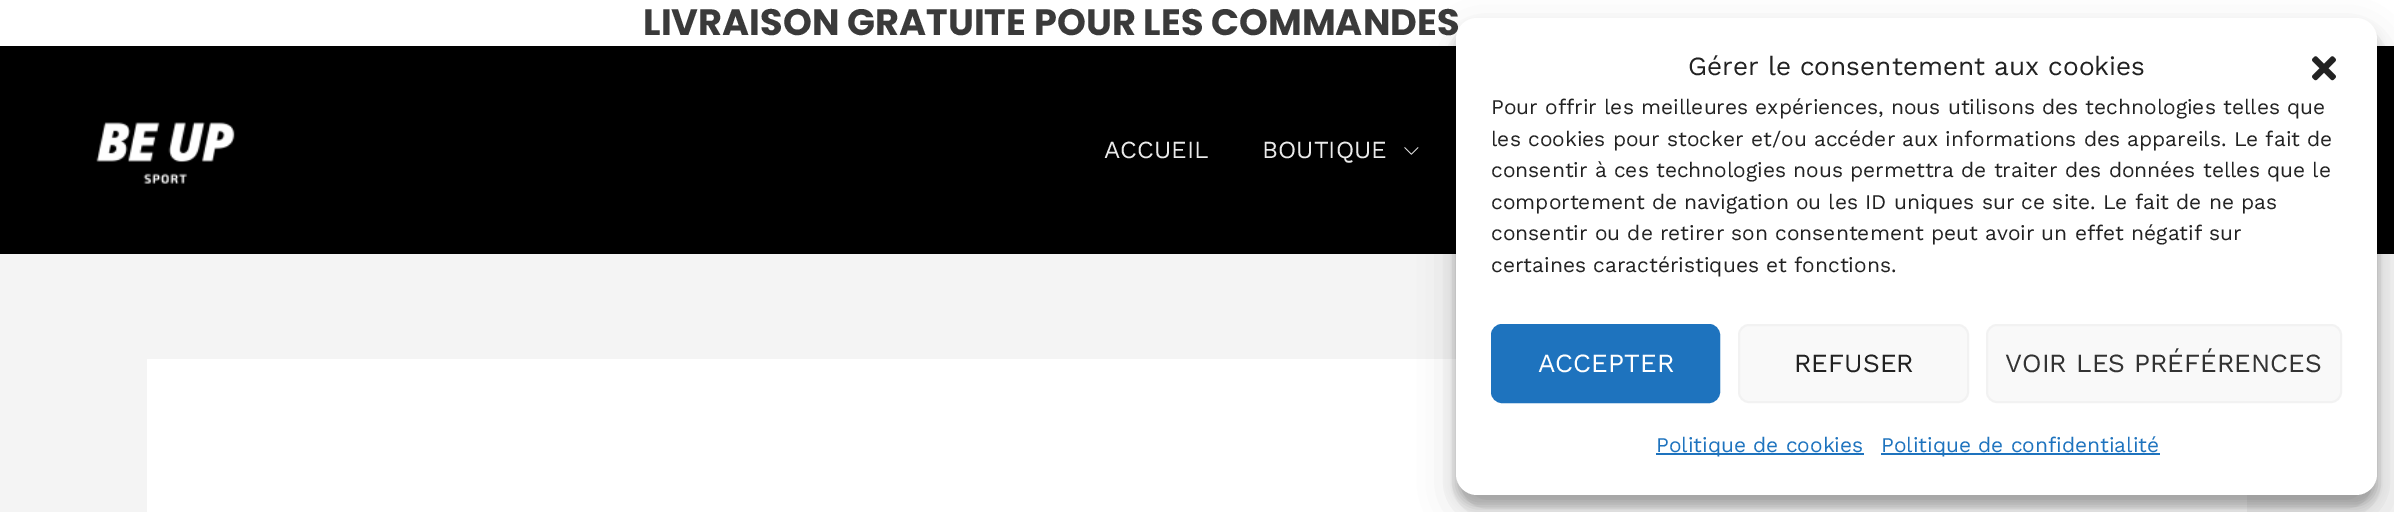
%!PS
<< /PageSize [2394 512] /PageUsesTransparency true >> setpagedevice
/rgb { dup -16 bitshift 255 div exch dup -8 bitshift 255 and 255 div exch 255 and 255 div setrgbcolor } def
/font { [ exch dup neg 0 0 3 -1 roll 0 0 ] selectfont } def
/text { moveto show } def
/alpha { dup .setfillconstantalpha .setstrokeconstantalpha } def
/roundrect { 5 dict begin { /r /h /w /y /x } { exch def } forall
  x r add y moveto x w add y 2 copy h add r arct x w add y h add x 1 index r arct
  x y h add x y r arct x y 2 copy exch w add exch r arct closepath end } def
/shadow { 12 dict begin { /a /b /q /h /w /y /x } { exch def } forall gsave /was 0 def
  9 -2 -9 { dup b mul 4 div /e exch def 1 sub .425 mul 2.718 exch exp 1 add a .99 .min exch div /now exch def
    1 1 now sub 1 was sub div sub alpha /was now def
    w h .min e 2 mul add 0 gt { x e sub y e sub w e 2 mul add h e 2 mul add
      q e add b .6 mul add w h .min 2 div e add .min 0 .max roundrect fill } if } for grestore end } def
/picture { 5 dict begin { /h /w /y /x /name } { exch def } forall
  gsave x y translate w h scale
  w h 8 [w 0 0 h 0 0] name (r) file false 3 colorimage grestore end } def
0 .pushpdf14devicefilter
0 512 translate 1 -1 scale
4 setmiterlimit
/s1 { /Poppins-Bold 36.75 font 16#3A3A3A rgb } def
/s2 { /WorkSans-Regular 24.5 font 16#EAEAEA rgb } def
/s3 { /WorkSans-Regular 26.25 font 16#222222 rgb } def
/s4 { /WorkSans-Regular 21 font 16#222222 rgb } def
/s5 { /WorkSans-Regular 26.25 font 16#FFFFFF rgb } def
/s6 { /WorkSans-Regular 26.25 font 16#333333 rgb } def
/s7 { /WorkSans-Regular 21 font 16#1E73BE rgb } def
16#F4F4F4 rgb
0 0 2394 512 rectfill
16#FFFFFF rgb
0 0 2394 46 rectfill
s1
(LIVRAISON GRATUITE POUR LES COMMANDES) 643 35 text
16#000000 rgb
0 46 2394 208 rectfill
(pic1.raw) 96 122 139 62 picture
s2
(ACCUEIL) 1104 158 text
(BOUTIQUE) 1262 158 text
(pic2.raw) 1404 147 15 8 picture
16#FFFFFF rgb
147 359 2100 153 rectfill
16#000000 rgb
1456 28 921 478 21 5 0.23 shadow
1456 35 921 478 21 17.5 0.19 shadow
16#FFFFFF rgb
1456 18 921 477 21 roundrect fill
s3
(Gérer le consentement aux cookies) 1688 75 text
(pic3.raw) 2312 56 24 25 picture
s4
(Pour offrir les meilleures expériences, nous utilisons des technologies telles que) 1491 114 text
(les cookies pour stocker et/ou accéder aux informations des appareils. Le fait de) 1491 146 text
(consentir à ces technologies nous permettra de traiter des données telles que le) 1491 177 text
(comportement de navigation ou les ID uniques sur ce site. Le fait de ne pas) 1491 209 text
(consentir ou de retirer son consentement peut avoir un effet négatif sur) 1491 240 text
(certaines caractéristiques et fonctions.) 1491 272 text
16#1E73BE rgb
1492 325 227 77 10 roundrect gsave fill grestore
2 setlinewidth
stroke
s5
(ACCEPTER) 1538 372 text
16#F9F9F9 rgb
1739 325 229 77 10 roundrect gsave fill grestore
16#F2F2F2 rgb
stroke
s3
(REFUSER) 1794 372 text
16#F9F9F9 rgb
1987 325 354 77 10 roundrect gsave fill grestore
16#F2F2F2 rgb
stroke
s6
(VOIR LES PRÉFÉRENCES) 2005 372 text
16#1E73BE rgb
1656 453 208 2 rectfill
s7
(Politique de cookies) 1656 452 text
1881 453 279 2 rectfill
(Politique de confidentialité) 1881 452 text
.poppdf14devicefilter showpage
